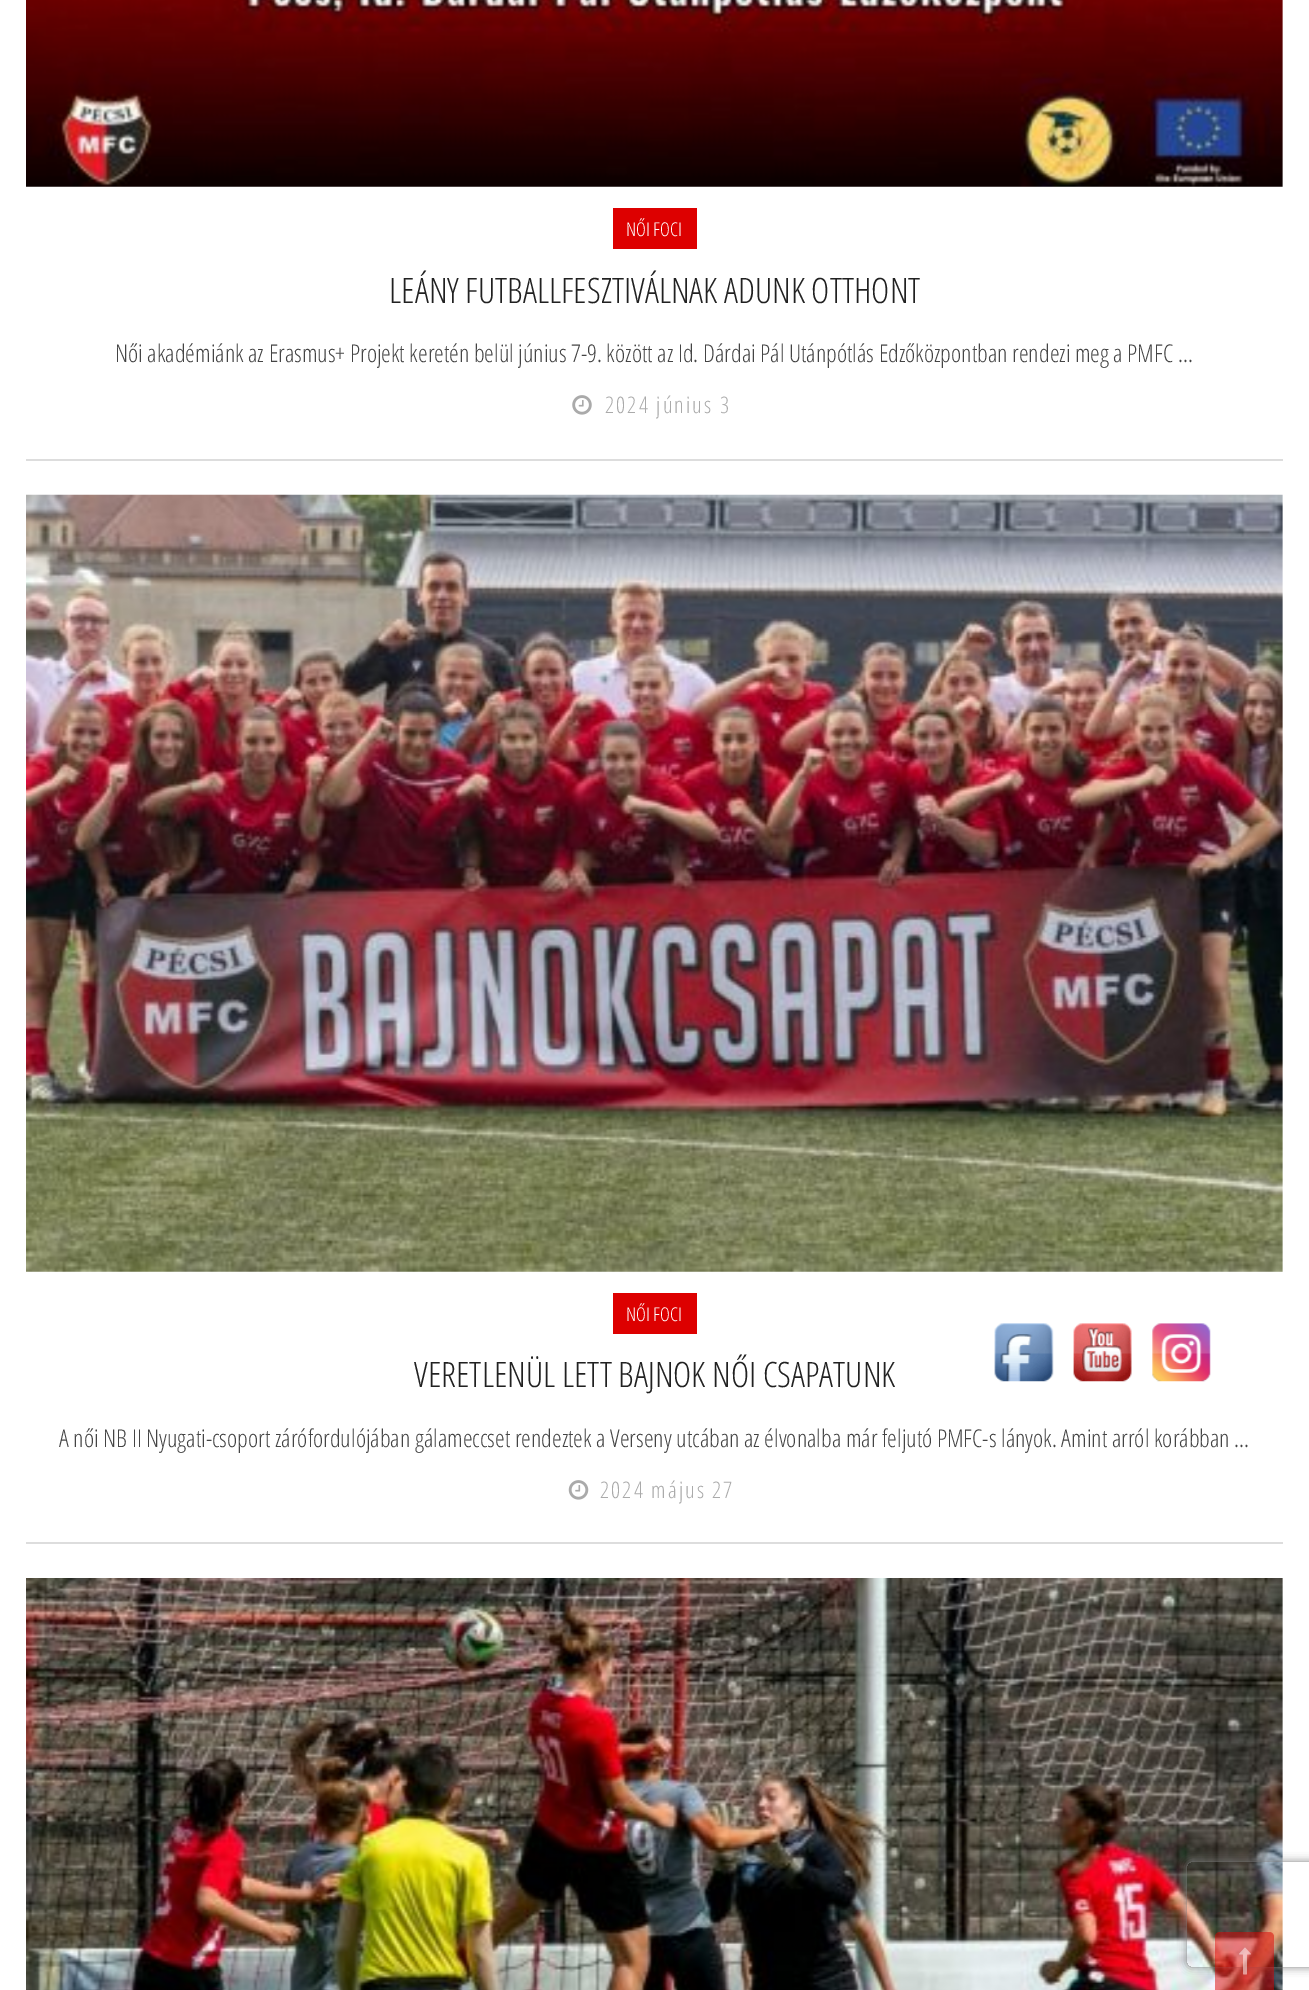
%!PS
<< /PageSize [1309 1990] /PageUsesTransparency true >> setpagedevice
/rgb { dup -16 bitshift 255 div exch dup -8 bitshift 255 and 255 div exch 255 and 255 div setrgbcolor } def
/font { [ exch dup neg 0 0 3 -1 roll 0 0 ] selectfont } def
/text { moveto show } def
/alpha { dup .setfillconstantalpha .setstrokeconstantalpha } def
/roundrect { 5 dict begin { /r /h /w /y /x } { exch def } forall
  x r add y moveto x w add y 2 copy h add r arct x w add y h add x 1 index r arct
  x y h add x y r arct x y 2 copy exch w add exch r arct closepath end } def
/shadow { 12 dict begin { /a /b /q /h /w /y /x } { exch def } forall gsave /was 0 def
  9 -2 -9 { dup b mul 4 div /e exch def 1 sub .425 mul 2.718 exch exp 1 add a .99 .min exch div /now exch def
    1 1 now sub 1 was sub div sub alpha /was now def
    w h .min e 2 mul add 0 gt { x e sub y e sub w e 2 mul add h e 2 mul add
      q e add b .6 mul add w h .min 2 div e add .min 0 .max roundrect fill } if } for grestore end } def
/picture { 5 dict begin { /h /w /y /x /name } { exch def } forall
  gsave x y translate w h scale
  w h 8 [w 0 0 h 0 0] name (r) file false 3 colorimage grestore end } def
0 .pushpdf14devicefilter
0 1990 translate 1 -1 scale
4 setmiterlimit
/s1 { /OpenSansCondensed-Light 19 font 16#FFFFFF rgb } def
/s2 { /OpenSansCondensed-Light 35 font 16#212121 rgb } def
/s3 { /OpenSansCondensed-Light 24.5 font 16#444444 rgb } def
16#FFFFFF rgb
0 0 1309 1990 rectfill
(pic1.raw) 26 0 1257 187 picture
16#DD0000 rgb
613 208 84 41 rectfill
s1
(NŐI FOCI) 626 236 text
s2
(LEÁNY FUTBALLFESZTIVÁLNAK ADUNK OTTHONT) 389 303 text
s3
(Női akadémiánk az Erasmus+ Projekt keretén belül június 7-9. között az Id. Dárdai Pál Utánpótlás Edzőközpontban rendezi meg a PMFC ...) 115 362 text
(pic2.raw) 572 395 20 20 picture
/OpenSansCondensed-Light 22.75 font
16#AAAAAA rgb
605 413 moveto 2.1 0 (2024 június 3) ashow
16#DDDDDD rgb
26 459 1257 2 rectfill
(pic3.raw) 26 494 1257 778 picture
16#DD0000 rgb
613 1293 84 41 rectfill
s1
(NŐI FOCI) 626 1321 text
s2
(VERETLENÜL LETT BAJNOK NŐI CSAPATUNK) 414 1387 text
s3
(A női NB II Nyugati-csoport zárófordulójában gálameccset rendeztek a Verseny utcában az élvonalba már feljutó PMFC-s lányok. Amint arról korábban ...) 59 1447 text
(pic4.raw) 568 1480 21 20 picture
/OpenSansCondensed-Light 22.75 font
16#AAAAAA rgb
600 1498 moveto 2.1 0 (2024 május 27) ashow
16#DDDDDD rgb
26 1542 1257 2 rectfill
(pic5.raw) 26 1578 1257 412 picture
gsave
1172 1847 moveto 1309 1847 lineto 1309 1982 lineto 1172 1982 lineto closepath 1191 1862 moveto 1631 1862 lineto 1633 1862 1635 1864 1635 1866 curveto 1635 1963 lineto 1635 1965 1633 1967 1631 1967 curveto 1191 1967 lineto 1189 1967 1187 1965 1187 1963 curveto 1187 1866 lineto 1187 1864 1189 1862 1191 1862 curveto closepath eoclip newpath
16#808080 rgb
1187 1862 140 105 4 4.5 1 shadow
grestore
0.5 alpha
16#DD0000 rgb
1220 1932 moveto 1269 1932 lineto 1272 1932 1274 1934 1274 1937 curveto 1274 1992 lineto 1215 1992 lineto 1215 1937 lineto 1215 1934 1217 1932 1220 1932 curveto closepath fill
1 alpha
(pic6.raw) 1239 1947 12 28 picture
(pic7.raw) 994 1323 60 59 picture
(pic8.raw) 1073 1323 59 59 picture
(pic9.raw) 1152 1323 59 59 picture
.poppdf14devicefilter showpage
